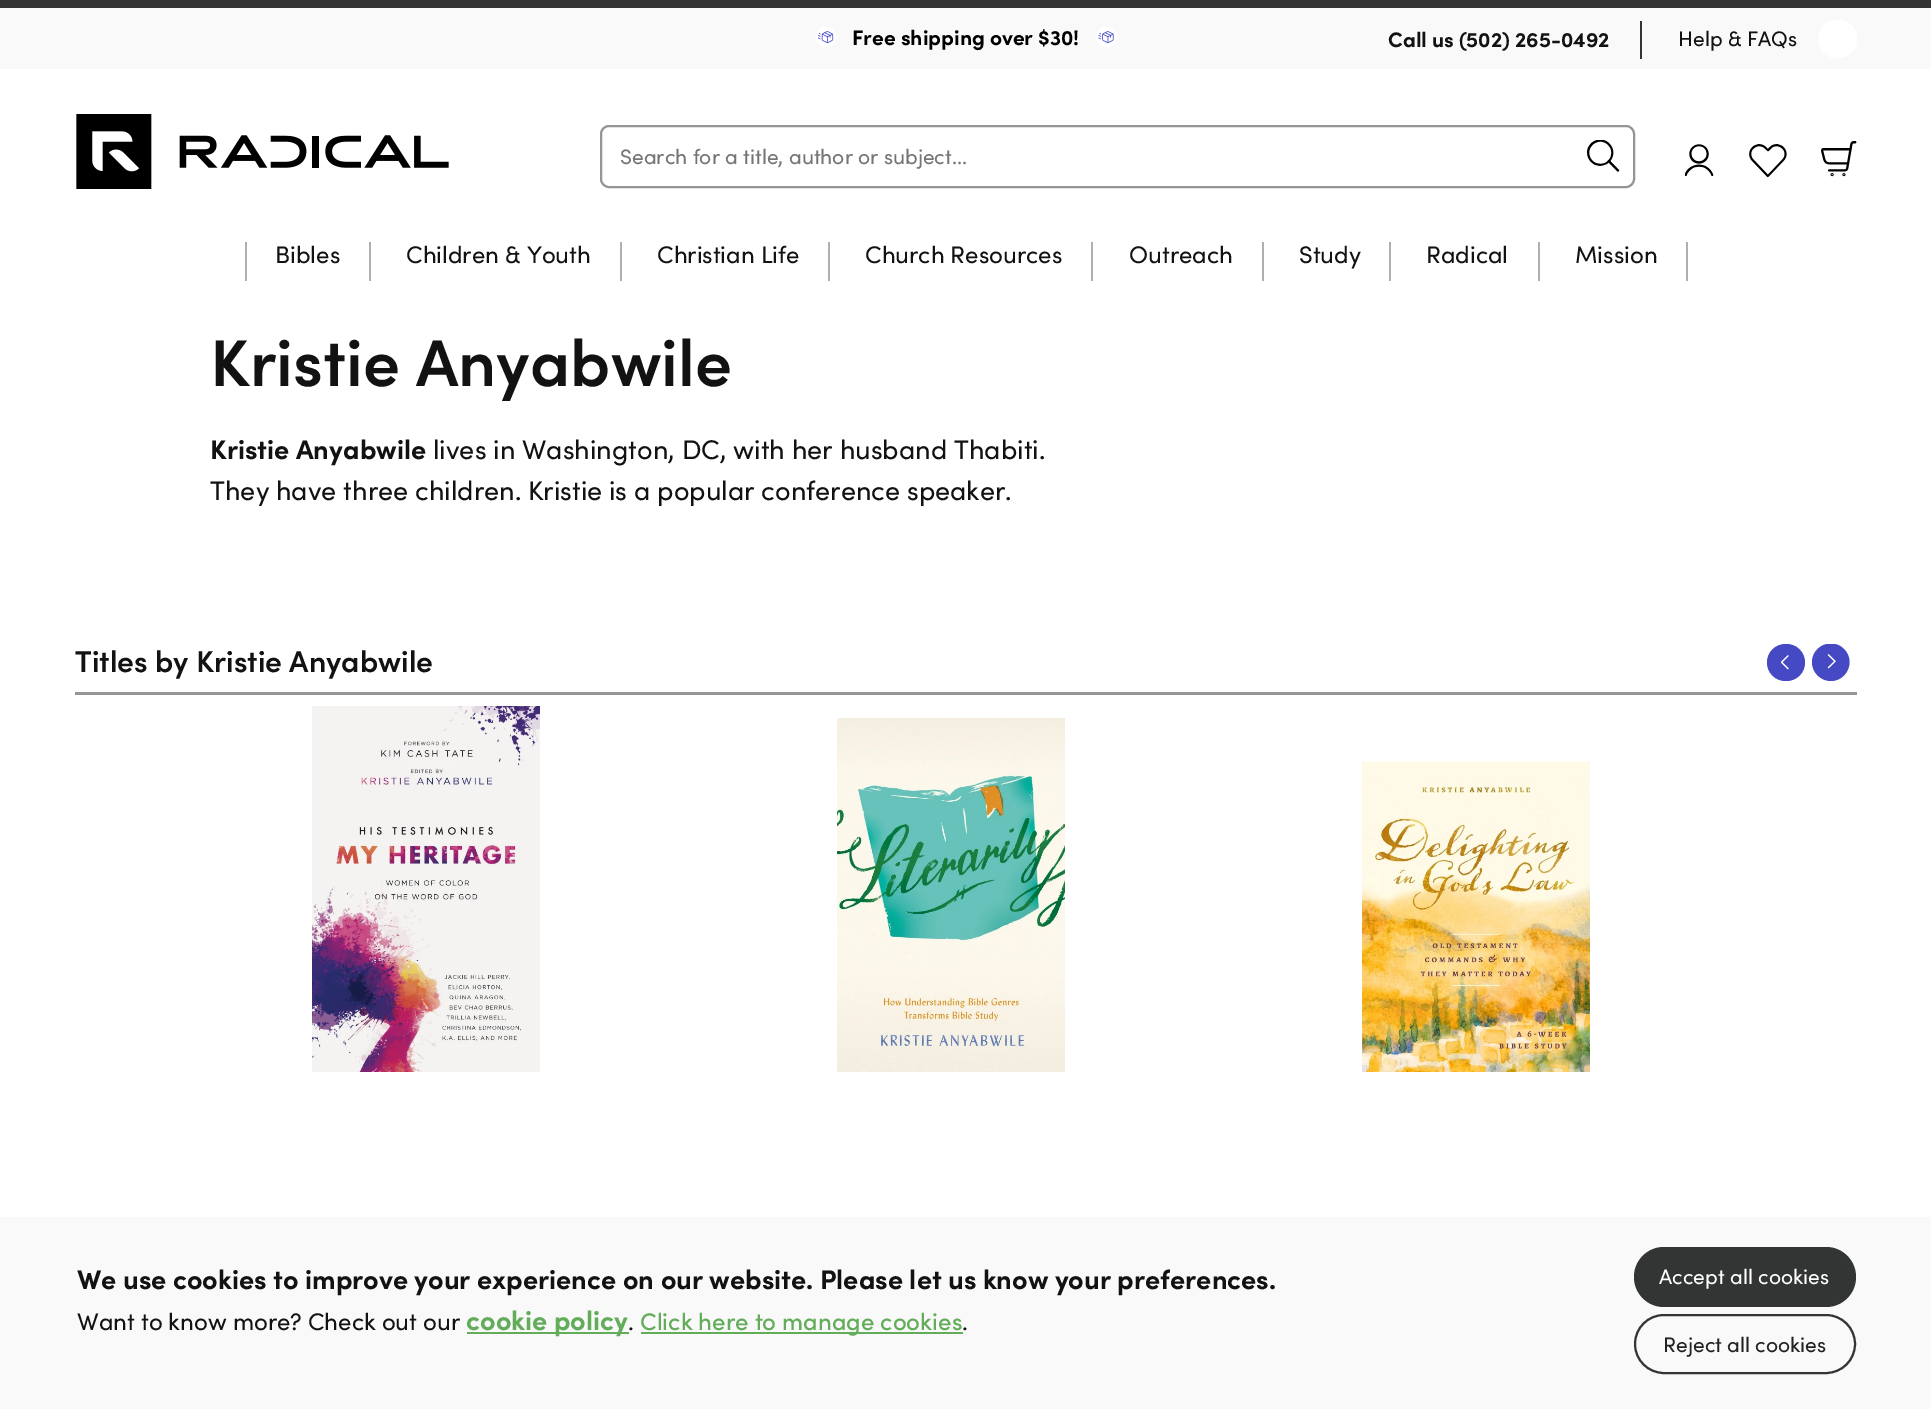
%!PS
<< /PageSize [1931 1409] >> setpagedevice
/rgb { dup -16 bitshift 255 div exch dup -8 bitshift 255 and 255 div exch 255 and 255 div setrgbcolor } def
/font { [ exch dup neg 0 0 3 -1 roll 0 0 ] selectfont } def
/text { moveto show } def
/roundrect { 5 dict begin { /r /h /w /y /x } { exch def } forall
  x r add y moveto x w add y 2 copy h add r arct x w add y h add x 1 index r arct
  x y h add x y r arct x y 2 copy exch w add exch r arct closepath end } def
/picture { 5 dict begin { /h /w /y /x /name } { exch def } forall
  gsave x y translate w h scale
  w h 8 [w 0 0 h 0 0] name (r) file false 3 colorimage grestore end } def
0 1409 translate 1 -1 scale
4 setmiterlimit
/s1 { /Sofia-Bold 21 font 16#000000 rgb } def
/s2 { /Sofia-Bold 21 font 16#121212 rgb } def
/s3 { /Sofia-Regular 21 font 16#121212 rgb } def
/s4 { /Sofia-Regular 21 font 16#757575 rgb } def
/s5 { /Sofia-Regular 24 font 16#121212 rgb } def
/s6 { /Sofia-SemiBold 66 font 16#121212 rgb } def
/s7 { /Sofia-Bold 27 font 16#121212 rgb } def
/s8 { /Sofia-Regular 27 font 16#121212 rgb } def
/s9 { /Sofia-SemiBold 30 font 16#121212 rgb } def
/s10 { /Sofia-Bold 27 font 16#62AC5A rgb } def
/s11 { /Sofia-Medium 24 font 16#62AC5A rgb } def
/s12 { /Sofia-Regular 21 font 16#FFFFFF rgb } def
/s13 { /Sofia-Regular 21 font 16#222222 rgb } def
16#FFFFFF rgb
0 0 1931 1409 rectfill
16#343434 rgb
0 0 1931 8 rectfill
16#F9F9F9 rgb
0 8 1931 61 rectfill
(pic1.raw) 816 27 20 20 picture
s1
(Free shipping over $30!) 852 45 text
(pic2.raw) 1096 27 21 20 picture
s2
(Call us \(502\) 265-0492) 1388 47 text
16#343434 rgb
1640 21 2 38 rectfill
s3
(Help & FAQs) 1678 46 text
gsave
1818 20 39 39 rectclip
16#FFFFFF rgb
1837.5 19.5 moveto 1826.5 19.5 1818 28 1818 39 curveto 1818 50 1826.5 58.5 1837.5 58.5 curveto 1848.5 58.5 1857 50 1857 39 curveto 1857 28 1848.5 19.5 1837.5 19.5 curveto closepath fill
grestore
(pic3.raw) 76 114 373 75 picture
16#959595 rgb
2 setlinewidth
601 126 1033 61 8 roundrect stroke
s4
(Search for a title, author or subject...) 620 164 text
(pic4.raw) 1587 140 33 32 picture
(pic5.raw) 1685 144 29 32 picture
(pic6.raw) 1749 144 38 34 picture
(pic7.raw) 1821 141 36 36 picture
16#AFAFAF rgb
245 242 2 39 rectfill
s5
(Bibles) 275 263 text
16#AFAFAF rgb
369 242 2 39 rectfill
s5
(Children & Youth) 406 263 text
16#AFAFAF rgb
620 242 2 39 rectfill
s5
(Christian Life) 657 263 text
16#AFAFAF rgb
828 242 2 39 rectfill
s5
(Church Resources) 865 263 text
16#AFAFAF rgb
1091 242 2 39 rectfill
s5
(Outreach) 1129 263 text
16#AFAFAF rgb
1262 242 2 39 rectfill
s5
(Study) 1299 263 text
16#AFAFAF rgb
1389 242 2 39 rectfill
s5
(Radical) 1426 263 text
16#AFAFAF rgb
1538 242 2 39 rectfill
s5
(Mission) 1575 263 text
16#AFAFAF rgb
1686 242 2 39 rectfill
s6
(Kristie Anyabwile) 210 386 text
s7
(Kristie Anyabwile) 210 459 text
s8
(lives in Washington, DC, with her husband Thabiti.) 433 459 text
(They have three children. Kristie is a popular conference speaker.) 210 500 text
16#959595 rgb
75 692 1782 3 rectfill
s9
(Titles by Kristie Anyabwile) 75 672 text
16#4549C4 rgb
1767 644 38 37 18.5 roundrect fill
(pic8.raw) 1781 655 8 15 picture
gsave
75 644 1782 477 rectclip
1831 681 moveto 1820.5 681 1812 672.5 1812 662 curveto 1812 652 1820.5 643.5 1831 643.5 curveto 1841 643.5 1849.5 652 1849.5 662 curveto 1849.5 672.5 1841 681 1831 681 curveto closepath fill
grestore
(pic9.raw) 1827 654 9 15 picture
(pic10.raw) 312 706 228 366 picture
(pic11.raw) 837 718 228 354 picture
(pic12.raw) 1362 761 228 311 picture
16#F9F9F9 rgb
0 1217 1931 192 rectfill
s7
(We use cookies to improve your experience on our website. Please let us know your preferences.) 77 1289 text
s5
(Want to know more? Check out our) 77 1330 text
16#62AC5A rgb
467 1332 162 2 rectfill
s10
(cookie policy) 466 1330 text
s5
(.) 628 1330 text
16#62AC5A rgb
641 1332 322 2 rectfill
s11
(Click here to manage cookies) 640 1330 text
s5
(.) 962 1330 text
16#333434 rgb
1634 1247 222 60 30 roundrect fill
s12
(Accept all cookies) 1659 1284 text
16#333434 rgb
1635 1315 220 58 29 roundrect stroke
s13
(Reject all cookies) 1663 1352 text
showpage
